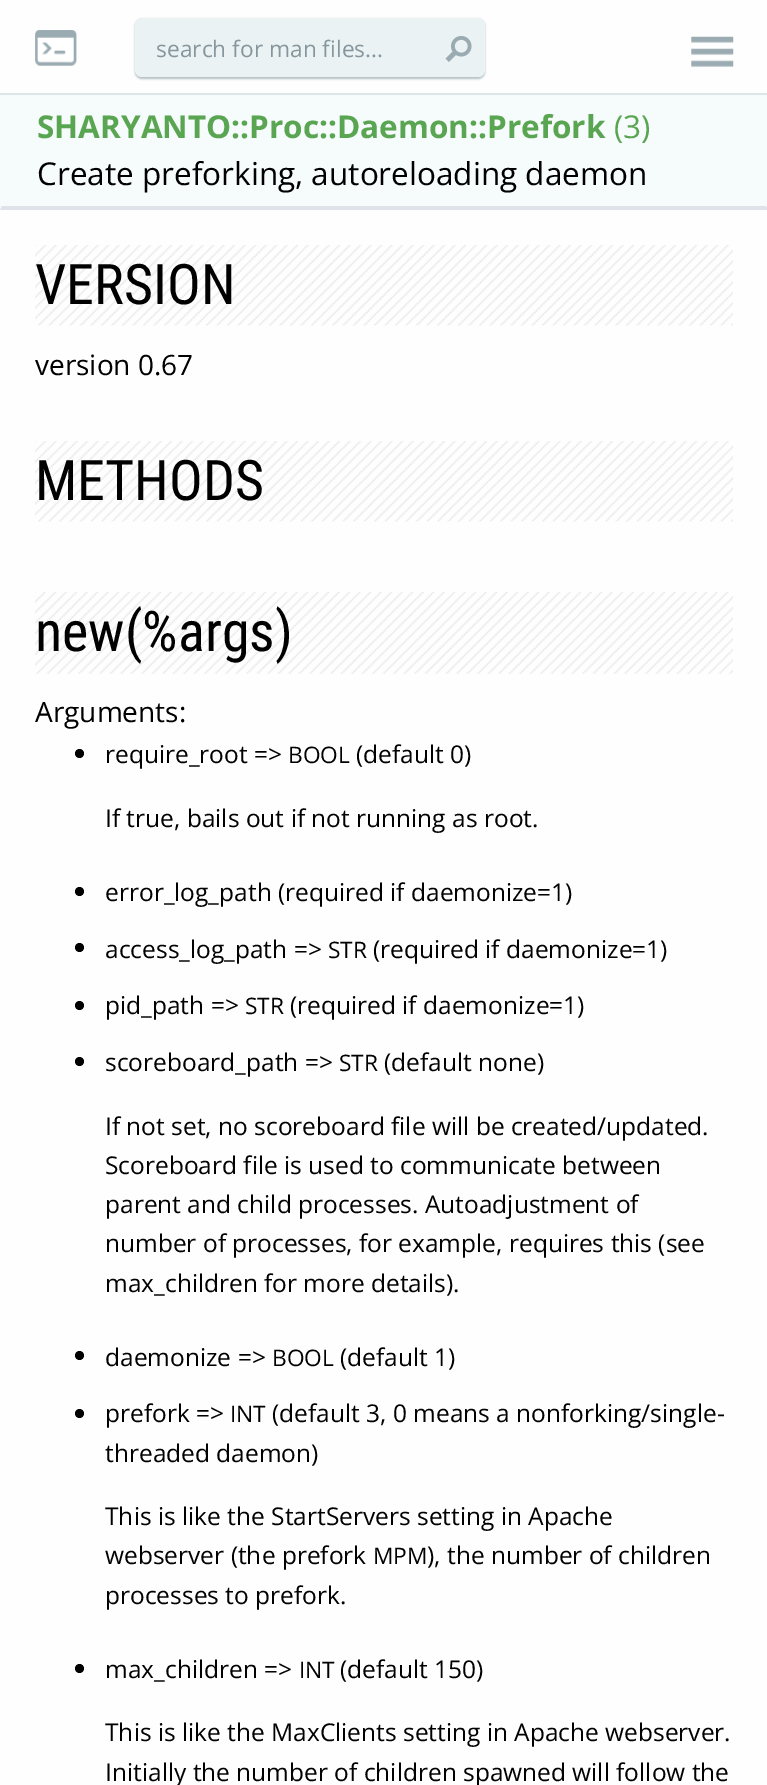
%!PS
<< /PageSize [767 1785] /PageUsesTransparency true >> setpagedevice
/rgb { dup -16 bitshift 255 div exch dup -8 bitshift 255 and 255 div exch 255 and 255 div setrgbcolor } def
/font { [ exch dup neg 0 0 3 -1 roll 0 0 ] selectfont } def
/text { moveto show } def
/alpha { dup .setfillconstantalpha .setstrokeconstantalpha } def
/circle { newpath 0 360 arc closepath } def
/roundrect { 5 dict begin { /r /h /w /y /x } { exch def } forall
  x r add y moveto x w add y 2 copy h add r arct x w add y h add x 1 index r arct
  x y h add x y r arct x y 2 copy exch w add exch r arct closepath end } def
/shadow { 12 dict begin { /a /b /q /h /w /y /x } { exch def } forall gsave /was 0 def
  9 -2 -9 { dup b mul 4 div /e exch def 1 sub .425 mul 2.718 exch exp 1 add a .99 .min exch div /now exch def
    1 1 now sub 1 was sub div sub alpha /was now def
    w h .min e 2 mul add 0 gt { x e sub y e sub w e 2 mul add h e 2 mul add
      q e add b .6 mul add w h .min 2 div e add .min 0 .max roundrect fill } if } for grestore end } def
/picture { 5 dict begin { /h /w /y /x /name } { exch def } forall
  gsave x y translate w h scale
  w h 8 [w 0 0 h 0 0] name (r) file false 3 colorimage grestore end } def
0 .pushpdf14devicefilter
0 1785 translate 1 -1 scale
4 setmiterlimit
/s1 { /OpenSans-Regular 22.75 font 16#86969D rgb } def
/s2 { /OpenSans-Bold 31.5 font 16#59A552 rgb } def
/s3 { /OpenSans-Regular 31.5 font 16#59A552 rgb } def
/s4 { /OpenSans-Regular 31.5 font 16#000000 rgb } def
/s5 { /RobotoCondensed-Regular 56 font 16#000000 rgb } def
/s6 { /OpenSans-Regular 28 font 16#000000 rgb } def
/s7 { /OpenSans-Regular 24.5 font 16#000000 rgb } def
/s8 { /OpenSans-Regular 22.75 font 16#000000 rgb } def
16#FEFEFE rgb
0 0 767 1785 rectfill
16#DCE5E7 rgb
0 93 767 2 rectfill
(pic1.raw) 35 30 42 36 picture
16#062F37 rgb
135 19 350 60 7 1 0.3 shadow
16#EAF2F4 rgb
135 18 350 59 7 roundrect fill
s1
(search for man files...) 156 57 text
(pic2.raw) 445 36 27 26 picture
(pic3.raw) 691 36 43 31 picture
16#F6FBFC rgb
0 95 767 115 rectfill
16#DFE3E9 rgb
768 210 moveto 0 210 lineto 2 206 lineto 766 206 lineto closepath fill
s2
(SHARYANTO::Proc::Daemon::Prefork) 37 138 text
s3
(\(3\)) 614 138 text
s4
(Create preforking, autoreloading daemon) 37 185 text
(pic4.raw) 35 245 698 81 picture
s5
(VERSION) 35 304 text
s6
(version 0.67) 35 375 text
(pic4.raw) 35 441 698 81 picture
s5
(METHODS) 35 500 text
(pic5.raw) 35 592 698 82 picture
(new\(%args\)) 35 651 text
s6
(Arguments:) 35 722 text
79.5 753.5 4.5 circle fill
s7
(require_root =>) 105 763 text
s8
(BOOL) 288 763 text
s7
(\(default 0\)) 356 763 text
(If true, bails out if not running as root.) 105 827 text
79.5 891.5 4.5 circle fill
(error_log_path \(required if daemonize=1\)) 105 901 text
79.5 947.5 4.5 circle fill
(access_log_path =>) 105 958 text
s8
(STR) 328 958 text
s7
(\(required if daemonize=1\)) 373 958 text
79.5 1005.5 4.5 circle fill
(pid_path =>) 105 1014 text
s8
(STR) 245 1014 text
s7
(\(required if daemonize=1\)) 290 1014 text
79.5 1061.5 4.5 circle fill
(scoreboard_path =>) 105 1071 text
s8
(STR) 339 1071 text
s7
(\(default none\)) 384 1071 text
(If not set, no scoreboard file will be created/updated.) 105 1135 text
(Scoreboard file is used to communicate between) 105 1174 text
(parent and child processes. Autoadjustment of) 105 1213 text
(number of processes, for example, requires this \(see) 105 1252 text
(max_children for more details\).) 105 1292 text
79.5 1355.5 4.5 circle fill
(daemonize =>) 105 1366 text
s8
(BOOL) 272 1366 text
s7
(\(default 1\)) 340 1366 text
79.5 1413.5 4.5 circle fill
(prefork =>) 105 1422 text
s8
(INT) 230 1422 text
s7
(\(default 3, 0 means a nonforking/single-) 272 1422 text
(threaded daemon\)) 105 1462 text
(This is like the StartServers setting in Apache) 105 1525 text
(webserver \(the prefork) 105 1564 text
s8
(MPM) 373 1564 text
s7
(\), the number of children) 427 1564 text
(processes to prefork.) 105 1604 text
79.5 1668.5 4.5 circle fill
(max_children =>) 105 1678 text
s8
(INT) 299 1678 text
s7
(\(default 150\)) 340 1678 text
(This is like the MaxClients setting in Apache webserver.) 105 1741 text
(Initially the number of children spawned will follow the) 105 1781 text
.poppdf14devicefilter showpage
